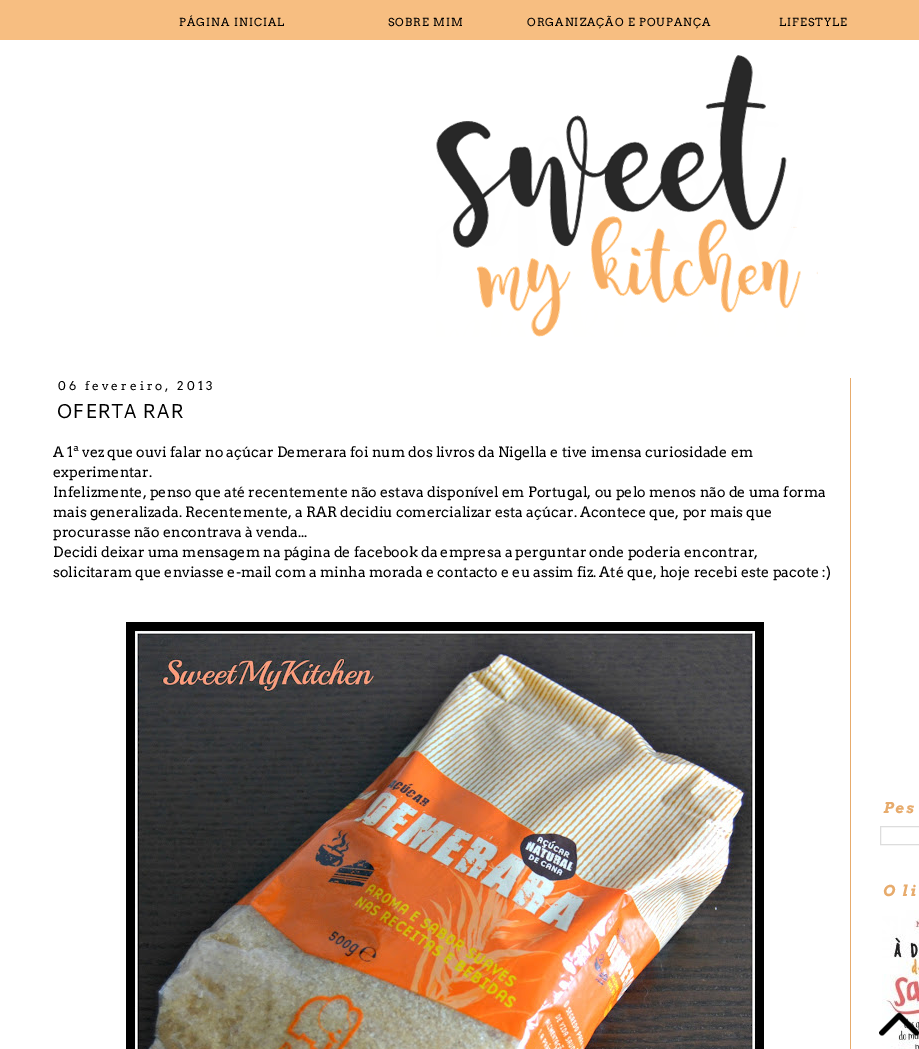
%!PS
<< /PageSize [919 1049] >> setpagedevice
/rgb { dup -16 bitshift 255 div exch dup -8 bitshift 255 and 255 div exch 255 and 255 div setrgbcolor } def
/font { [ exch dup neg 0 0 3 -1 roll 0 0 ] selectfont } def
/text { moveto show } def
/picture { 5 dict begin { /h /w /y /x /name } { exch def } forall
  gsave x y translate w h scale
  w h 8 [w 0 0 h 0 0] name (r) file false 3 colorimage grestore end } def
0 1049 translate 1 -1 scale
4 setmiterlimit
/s1 { /Cantarell-Regular 20 font 16#000000 rgb } def
/s2 { /Arvo-Regular 14.3 font 16#000000 rgb } def
16#FFFFFF rgb
0 0 919 1049 rectfill
16#F7BE81 rgb
0 0 919 40 rectfill
/Arvo-Regular 11 font
16#000000 rgb
179 26 moveto 1 0 (PÁGINA INICIAL) ashow
388 26 moveto 1 0 (SOBRE MIM) ashow
527 26 moveto 1 0 (ORGANIZAÇÃO E POUPANÇA) ashow
779 26 moveto 1 0 (LIFESTYLE) ashow
(pic1.raw) 436 55 382 282 picture
16#E7AB6C rgb
850 378 1 671 rectfill
/Arvo-Regular 12 font
16#000000 rgb
58 390 moveto 3 0 (06 fevereiro, 2013) ashow
s1
(OFERTA RAR) 56 418 text
s2
(A 1ª vez que ouvi falar no açúcar Demerara foi num dos livros da Nigella e tive imensa curiosidade em) 53 457 text
(experimentar.) 53 477 text
(Infelizmente, penso que até recentemente não estava disponível em Portugal, ou pelo menos não de uma forma) 53 497 text
(mais generalizada. Recentemente, a RAR decidiu comercializar esta açúcar. Acontece que, por mais que) 53 517 text
(procurasse não encontrava à venda...) 53 537 text
(Decidi deixar uma mensagem na página de facebook da empresa a perguntar onde poderia encontrar,) 53 557 text
(solicitaram que enviasse e-mail com a minha morada e contacto e eu assim fiz. Até que, hoje recebi este pacote :\)) 53 577 text
(pic2.raw) 126 622 638 427 picture
/Arvo-BoldItalic 15 font
16#E7AB6C rgb
883 813 moveto 2 0 (Pes) ashow
16#DDDDDD rgb
880.5 826.5 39 18 rectstroke
16#E7AB6C rgb
883 896 moveto 2 0 (O li) ashow
(pic3.raw) 882 910 37 139 picture
(pic4.raw) 879 1012 40 24 picture
showpage
